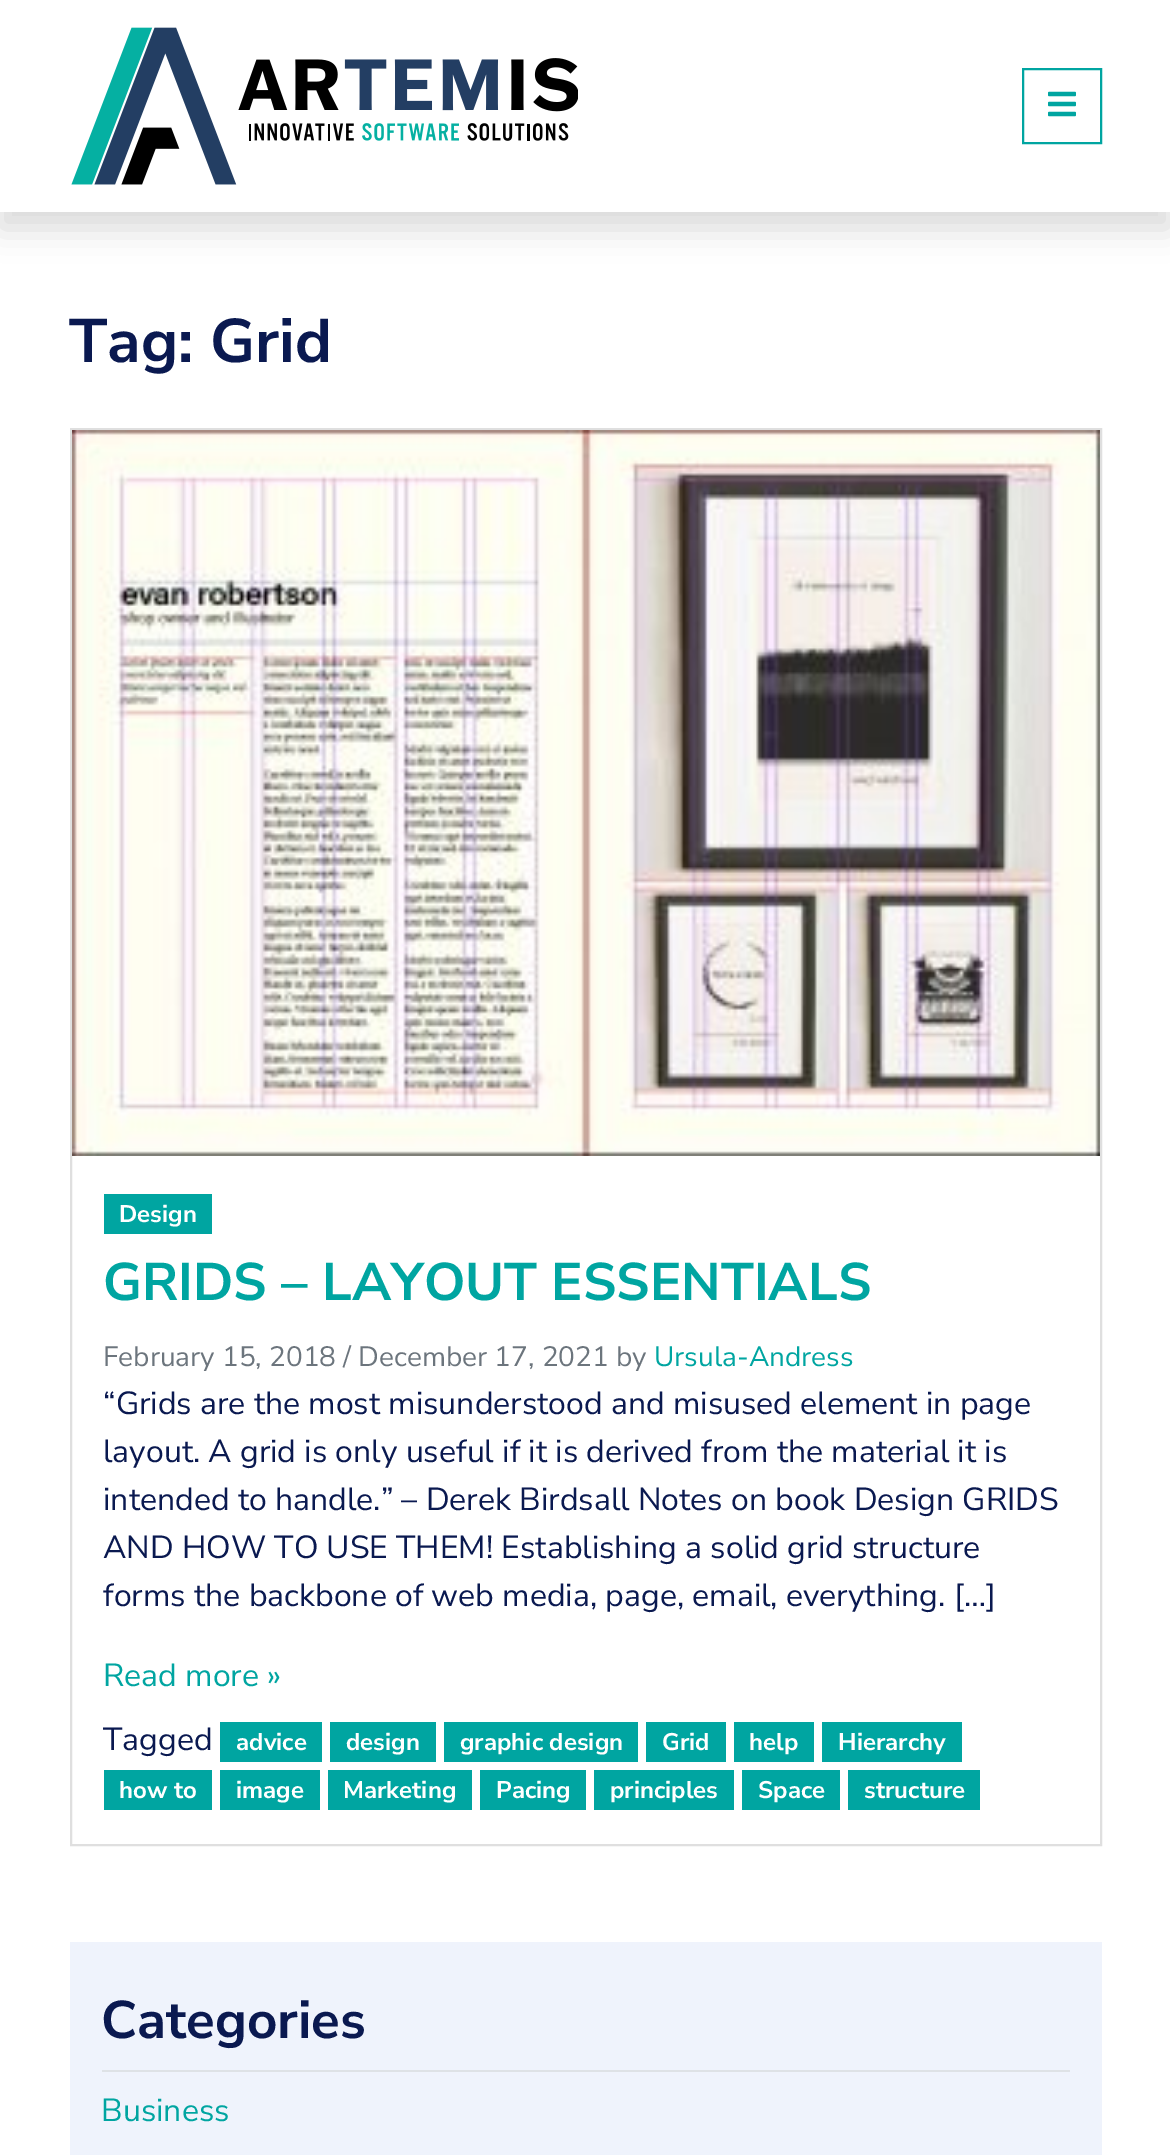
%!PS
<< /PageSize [1170 2155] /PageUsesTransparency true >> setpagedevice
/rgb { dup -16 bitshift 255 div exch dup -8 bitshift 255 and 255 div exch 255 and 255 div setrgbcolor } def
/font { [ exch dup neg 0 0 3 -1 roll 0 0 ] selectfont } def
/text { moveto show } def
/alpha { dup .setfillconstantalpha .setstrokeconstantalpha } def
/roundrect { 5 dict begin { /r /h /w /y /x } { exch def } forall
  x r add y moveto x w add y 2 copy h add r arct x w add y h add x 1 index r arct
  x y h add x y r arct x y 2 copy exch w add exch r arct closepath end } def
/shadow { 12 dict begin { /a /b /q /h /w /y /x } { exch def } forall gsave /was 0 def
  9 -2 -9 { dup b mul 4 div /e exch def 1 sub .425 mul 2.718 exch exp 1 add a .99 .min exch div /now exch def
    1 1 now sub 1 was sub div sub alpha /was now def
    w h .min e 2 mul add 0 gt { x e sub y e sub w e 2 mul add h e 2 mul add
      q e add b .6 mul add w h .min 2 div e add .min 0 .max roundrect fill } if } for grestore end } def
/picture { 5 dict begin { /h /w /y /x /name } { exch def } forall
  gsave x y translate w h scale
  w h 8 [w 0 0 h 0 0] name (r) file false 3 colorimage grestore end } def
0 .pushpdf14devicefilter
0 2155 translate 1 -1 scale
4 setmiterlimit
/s1 { /NunitoSans-Bold 61.5 font 16#0A1950 rgb } def
/s2 { /NunitoSans-Bold 24 font 16#FFFFFF rgb } def
/s3 { /NunitoSans-Bold 52.9 font 16#00A5A1 rgb } def
/s4 { /NunitoSans-Regular 28 font 16#6C757D rgb } def
/s5 { /NunitoSans-Regular 28 font 16#00A5A1 rgb } def
/s6 { /NunitoSans-Regular 32 font 16#0A1950 rgb } def
/s7 { /NunitoSans-Regular 32 font 16#00A5A1 rgb } def
/s8 { /NunitoSans-Bold 52.9 font 16#0A1950 rgb } def
16#FFFFFF rgb
0 0 1170 2155 rectfill
16#000000 rgb
0 16 1170 212 0 16 0.15 shadow
16#FFFFFF rgb
0 0 1170 212 rectfill
(pic1.raw) 71 27 507 158 picture
16#00A5A1 rgb
2 setlinewidth
1023 69 78 74 rectstroke
(pic2.raw) 1048 91 28 26 picture
s1
(Tag: Grid) 69 362 text
16#DFDFDF rgb
71 429 1030 1416 rectstroke
(pic3.raw) 72 430 1028 726 picture
16#00A5A1 rgb
104 1194 108 40 rectfill
s2
(Design) 119 1222 text
s3
(GRIDS – LAYOUT ESSENTIALS) 103 1300 text
s4
(February 15, 2018 / December 17, 2021 by) 103 1366 text
s5
(Ursula-Andress) 654 1366 text
s6
(“Grids are the most misunderstood and misused element in page) 103 1414 text
(layout. A grid is only useful if it is derived from the material it is) 103 1462 text
(intended to handle.” – Derek Birdsall Notes on book Design GRIDS) 103 1510 text
(AND HOW TO USE THEM! Establishing a solid grid structure) 103 1558 text
(forms the backbone of web media, page, email, everything. […]) 103 1606 text
s7
(Read more ») 103 1686 text
s6
(Tagged) 103 1750 text
16#00A5A1 rgb
220 1722 102 40 rectfill
s2
(advice) 236 1750 text
16#00A5A1 rgb
330 1722 106 40 rectfill
s2
(design) 346 1750 text
16#00A5A1 rgb
444 1722 194 40 rectfill
s2
(graphic design) 460 1750 text
16#00A5A1 rgb
646 1722 80 40 rectfill
s2
(Grid) 662 1750 text
16#00A5A1 rgb
734 1722 80 40 rectfill
s2
(help) 749 1750 text
16#00A5A1 rgb
822 1722 140 40 rectfill
s2
(Hierarchy) 838 1750 text
16#00A5A1 rgb
104 1770 108 40 rectfill
s2
(how to) 119 1798 text
16#00A5A1 rgb
220 1770 100 40 rectfill
s2
(image) 236 1798 text
16#00A5A1 rgb
328 1770 144 40 rectfill
s2
(Marketing) 343 1798 text
16#00A5A1 rgb
480 1770 106 40 rectfill
s2
(Pacing) 496 1798 text
16#00A5A1 rgb
594 1770 140 40 rectfill
s2
(principles) 610 1798 text
16#00A5A1 rgb
742 1770 98 40 rectfill
s2
(Space) 758 1798 text
16#00A5A1 rgb
848 1770 132 40 rectfill
s2
(structure) 864 1798 text
16#EFF3FC rgb
70 1942 1032 213 rectfill
16#DEE2E6 rgb
102 2070 968 2 rectfill
s8
(Categories) 101 2038 text
s7
(Business) 101 2121 text
.poppdf14devicefilter showpage
